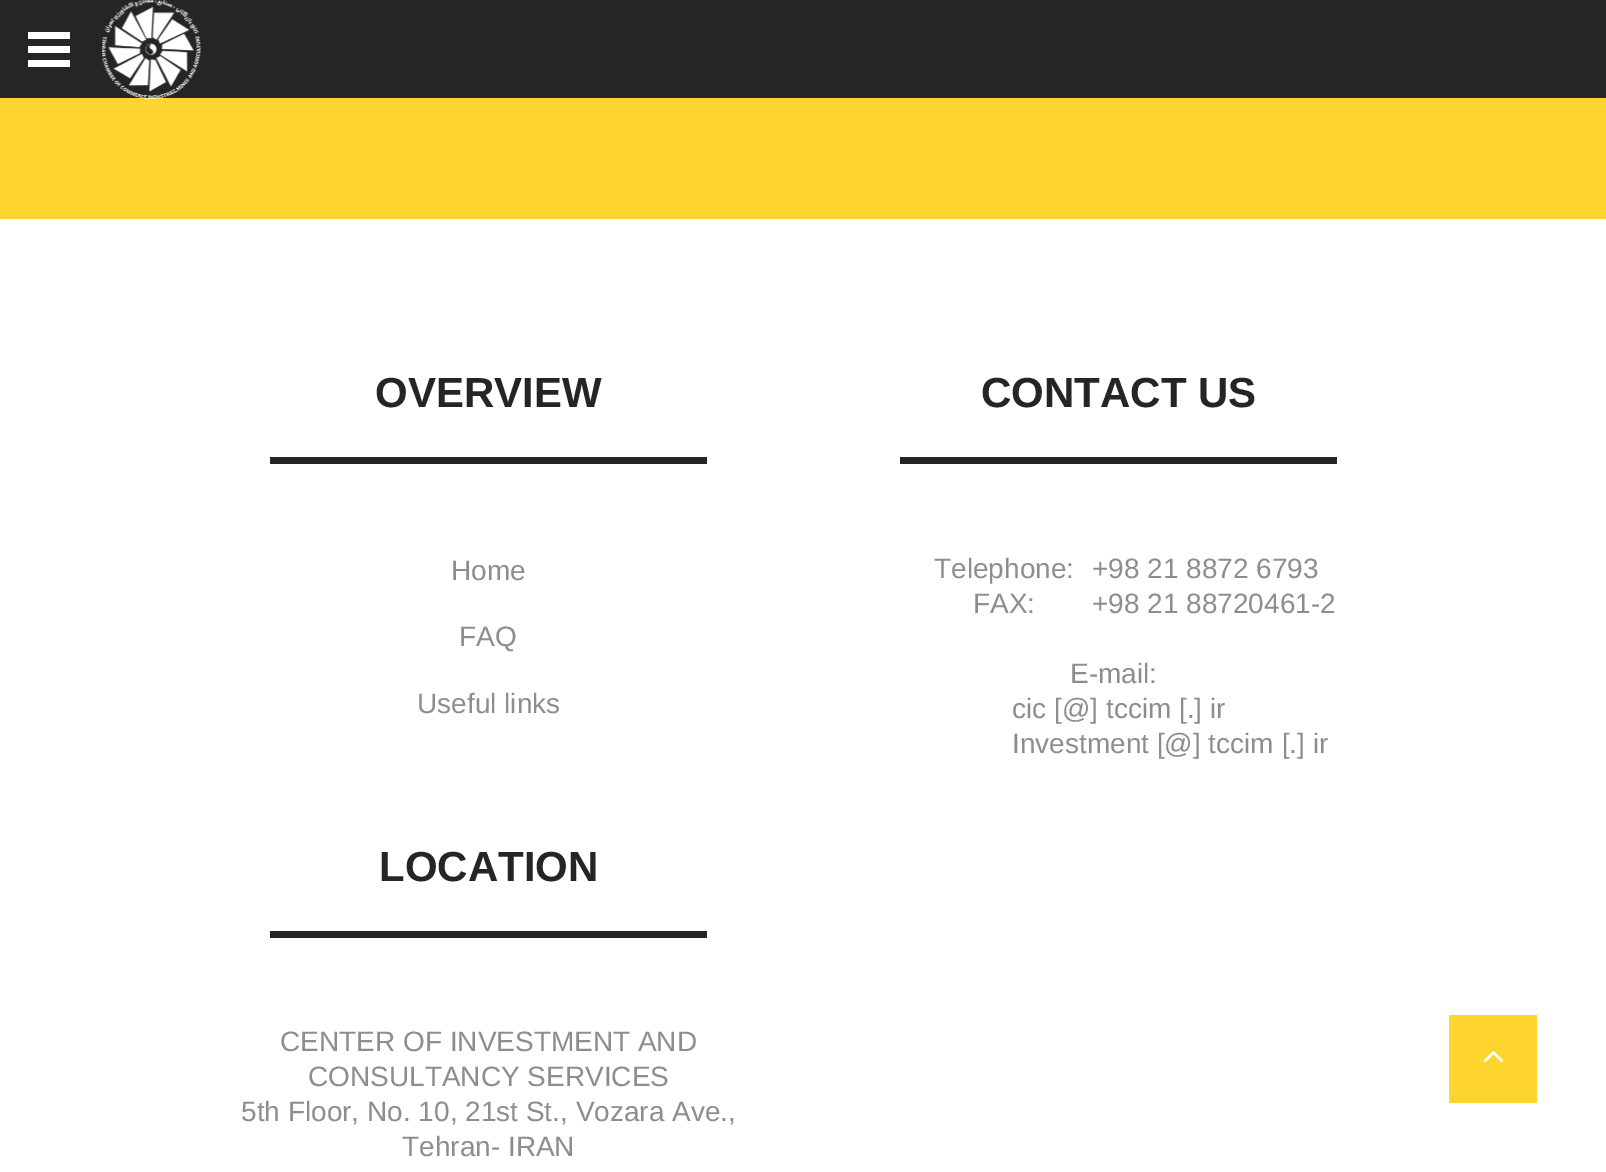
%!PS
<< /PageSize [1606 1172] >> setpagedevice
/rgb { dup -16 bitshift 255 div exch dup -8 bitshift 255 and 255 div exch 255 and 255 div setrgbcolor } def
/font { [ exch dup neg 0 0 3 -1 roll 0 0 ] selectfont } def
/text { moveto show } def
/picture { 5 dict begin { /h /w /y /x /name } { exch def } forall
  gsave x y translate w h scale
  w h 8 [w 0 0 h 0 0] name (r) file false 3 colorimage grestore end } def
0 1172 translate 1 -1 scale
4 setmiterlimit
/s1 { /LiberationSans-Bold 42 font 16#262523 rgb } def
/s2 { /LiberationSans-Regular 28 font 16#8F8D8B rgb } def
16#FFFFFF rgb
0 0 1606 1172 rectfill
16#262523 rgb
0 0 1606 98 rectfill
16#FFFFFF rgb
28 46 42 7 rectfill
28 32 42 7 rectfill
28 60 42 7 rectfill
16#FFD530 rgb
0 98 1606 121 rectfill
(pic1.raw) 102 0 99 100 picture
s1
(OVERVIEW) 375 407 text
270 457 437 7 rectfill
s2
(Home) 451 580 text
(FAQ) 459 646 text
(Useful links) 417 713 text
s1
(CONTACT US) 981 407 text
900 457 437 7 rectfill
s2
(Telephone:) 934 578 text
(+98 21 8872 6793) 1092 578 text
(FAX:) 973 613 text
(+98 21 88720461-2) 1092 613 text
(E-mail:) 1070 683 text
(cic [@] tccim [.] ir) 1012 718 text
(Investment [@] tccim [.] ir) 1012 753 text
s1
(LOCATION) 379 881 text
270 931 437 7 rectfill
s2
(CENTER OF INVESTMENT AND) 280 1051 text
(CONSULTANCY SERVICES) 308 1086 text
(5th Floor, No. 10, 21st St., Vozara Ave.,) 241 1121 text
(Tehran- IRAN) 402 1156 text
16#FFD530 rgb
1449 1015 88 88 rectfill
(pic2.raw) 1483 1050 21 13 picture
showpage
